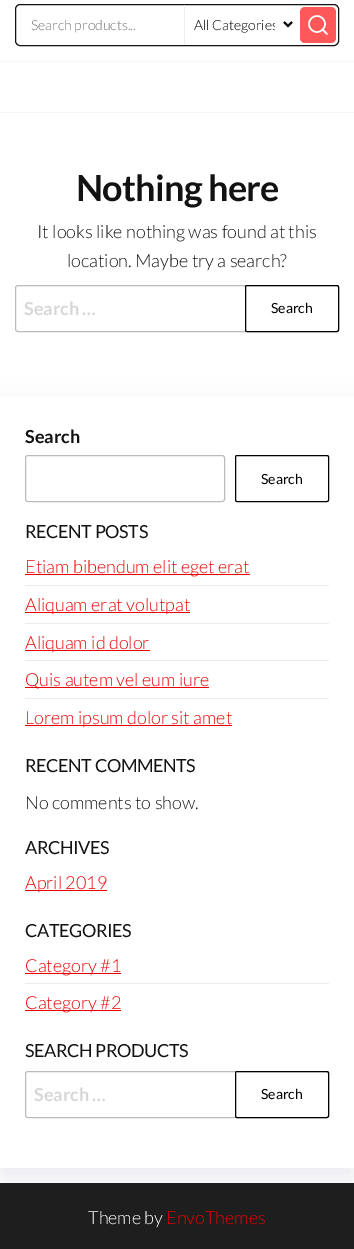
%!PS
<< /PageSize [354 1249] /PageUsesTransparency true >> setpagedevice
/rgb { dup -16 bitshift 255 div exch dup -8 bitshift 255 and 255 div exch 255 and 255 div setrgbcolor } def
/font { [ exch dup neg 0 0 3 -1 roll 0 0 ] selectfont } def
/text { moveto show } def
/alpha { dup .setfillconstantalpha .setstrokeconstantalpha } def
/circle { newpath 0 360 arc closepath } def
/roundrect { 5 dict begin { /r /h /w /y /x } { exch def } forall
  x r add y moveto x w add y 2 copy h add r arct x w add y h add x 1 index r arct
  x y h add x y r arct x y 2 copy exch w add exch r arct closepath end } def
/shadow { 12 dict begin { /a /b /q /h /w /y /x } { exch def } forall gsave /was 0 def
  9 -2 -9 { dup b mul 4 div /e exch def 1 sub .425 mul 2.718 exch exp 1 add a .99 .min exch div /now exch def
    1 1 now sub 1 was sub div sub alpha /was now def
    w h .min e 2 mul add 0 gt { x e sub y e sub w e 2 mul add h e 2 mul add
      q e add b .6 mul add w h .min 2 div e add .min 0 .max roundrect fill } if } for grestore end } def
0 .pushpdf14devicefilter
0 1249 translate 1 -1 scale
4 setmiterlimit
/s1 { /Lato-Light 14 font 16#757575 rgb } def
/s2 { /Lato-Light 14 font 16#000000 rgb } def
/s3 { /Lato-Light 18 font 16#121212 rgb } def
/s4 { /Lato-Bold 18 font 16#D7D7D7 rgb } def
/s5 { /Lato-Regular 14 font 16#000000 rgb } def
/s6 { /Lato-Bold 18 font 16#121212 rgb } def
/s7 { /Lato-Light 18 font 16#EB0000 rgb } def
/s8 { /Lato-Light 18 font 16#FFFFFF rgb } def
16#FFFFFF rgb
0 0 354 1249 rectfill
16#F6F6F6 rgb
0 61 354 1 rectfill
16#121212 rgb
15.5 4.5 323 41 4.5 roundrect stroke
s1
(Search products...) 31 30 text
16#ECECEC rgb
184 5 1 39 rectfill
16#000000 rgb
2 setlinewidth
284 22 moveto 288 26 lineto 292 22 lineto stroke
gsave
194 15 81 19 rectclip
(All Categories) 194 30 text
grestore
16#FF5858 rgb
300 7 36 36 5 roundrect fill
16#FFFFFF rgb
1.5 setlinewidth
317 24 8 circle stroke
1 setlinecap
1 setlinejoin
327 34 moveto 322.5 29.5 lineto stroke
16#F6F6F6 rgb
0 112 354 1 rectfill
/Lato-Bold 36 font
16#121212 rgb
76 201 moveto -0.75 0 (Nothing here) ashow
s3
(It looks like nothing was found at this) 37 238 text
(location. Maybe try a search?) 67 267 text
16#BBBBBB rgb
1 setlinewidth
0 setlinecap
0 setlinejoin
15.5 285.5 323 46 2.5 roundrect stroke
s4
(Search …) 24 315 text
16#000000 rgb
245.5 285.5 93 46 1.5 roundrect stroke
s5
(Search) 271 313 text
16#1E1E1E rgb
0 1183 354 66 rectfill
gsave
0 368 moveto 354 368 lineto 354 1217 lineto 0 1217 lineto closepath 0 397 moveto 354 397 lineto 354 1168 lineto 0 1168 lineto closepath eoclip newpath
16#1C2D71 rgb
0 407 354 771 0 12.5 0.1 shadow
grestore
s6
(Search) 25 443 text
16#BBBBBB rgb
25.5 455.5 199 46 2.5 roundrect stroke
16#000000 rgb
235.5 455.5 93 46 1.5 roundrect stroke
s5
(Search) 261 484 text
/Lato-Regular 18 font
16#121212 rgb
25 538 moveto -0.4 0 (RECENT POSTS) ashow
16#EBEBEB rgb
25 585 304 1 rectfill
16#EB0000 rgb
25 574 225 1 rectfill
s7
(Etiam bibendum elit eget erat) 25 573 text
16#EBEBEB rgb
25 623 304 1 rectfill
16#EB0000 rgb
25 612 165 1 rectfill
(Aliquam erat volutpat) 25 611 text
16#EBEBEB rgb
25 660 304 1 rectfill
16#EB0000 rgb
25 650 125 1 rectfill
(Aliquam id dolor) 25 649 text
16#EBEBEB rgb
25 698 304 1 rectfill
16#EB0000 rgb
25 687 184 1 rectfill
(Quis autem vel eum iure) 25 686 text
25 725 207 1 rectfill
(Lorem ipsum dolor sit amet) 25 724 text
/Lato-Regular 18 font
16#121212 rgb
25 772 moveto -0.4 0 (RECENT COMMENTS) ashow
s3
(No comments to show.) 25 809 text
/Lato-Regular 18 font
25 854 moveto -0.4 0 (ARCHIVES) ashow
16#EB0000 rgb
25 890 82 1 rectfill
s7
(April 2019) 25 889 text
/Lato-Regular 18 font
16#121212 rgb
25 937 moveto -0.4 0 (CATEGORIES) ashow
16#EBEBEB rgb
25 983 304 1 rectfill
16#EB0000 rgb
25 973 96 1 rectfill
s7
(Category #1) 25 972 text
25 1010 96 1 rectfill
(Category #2) 25 1009 text
/Lato-Regular 18 font
16#121212 rgb
25 1057 moveto -0.4 0 (SEARCH PRODUCTS) ashow
16#BBBBBB rgb
25.5 1071.5 303 46 2.5 roundrect stroke
s4
(Search …) 34 1101 text
16#000000 rgb
235.5 1071.5 93 46 1.5 roundrect stroke
s5
(Search) 261 1099 text
s8
(Theme by) 88 1224 text
s7
(EnvoThemes) 166 1224 text
.poppdf14devicefilter showpage
